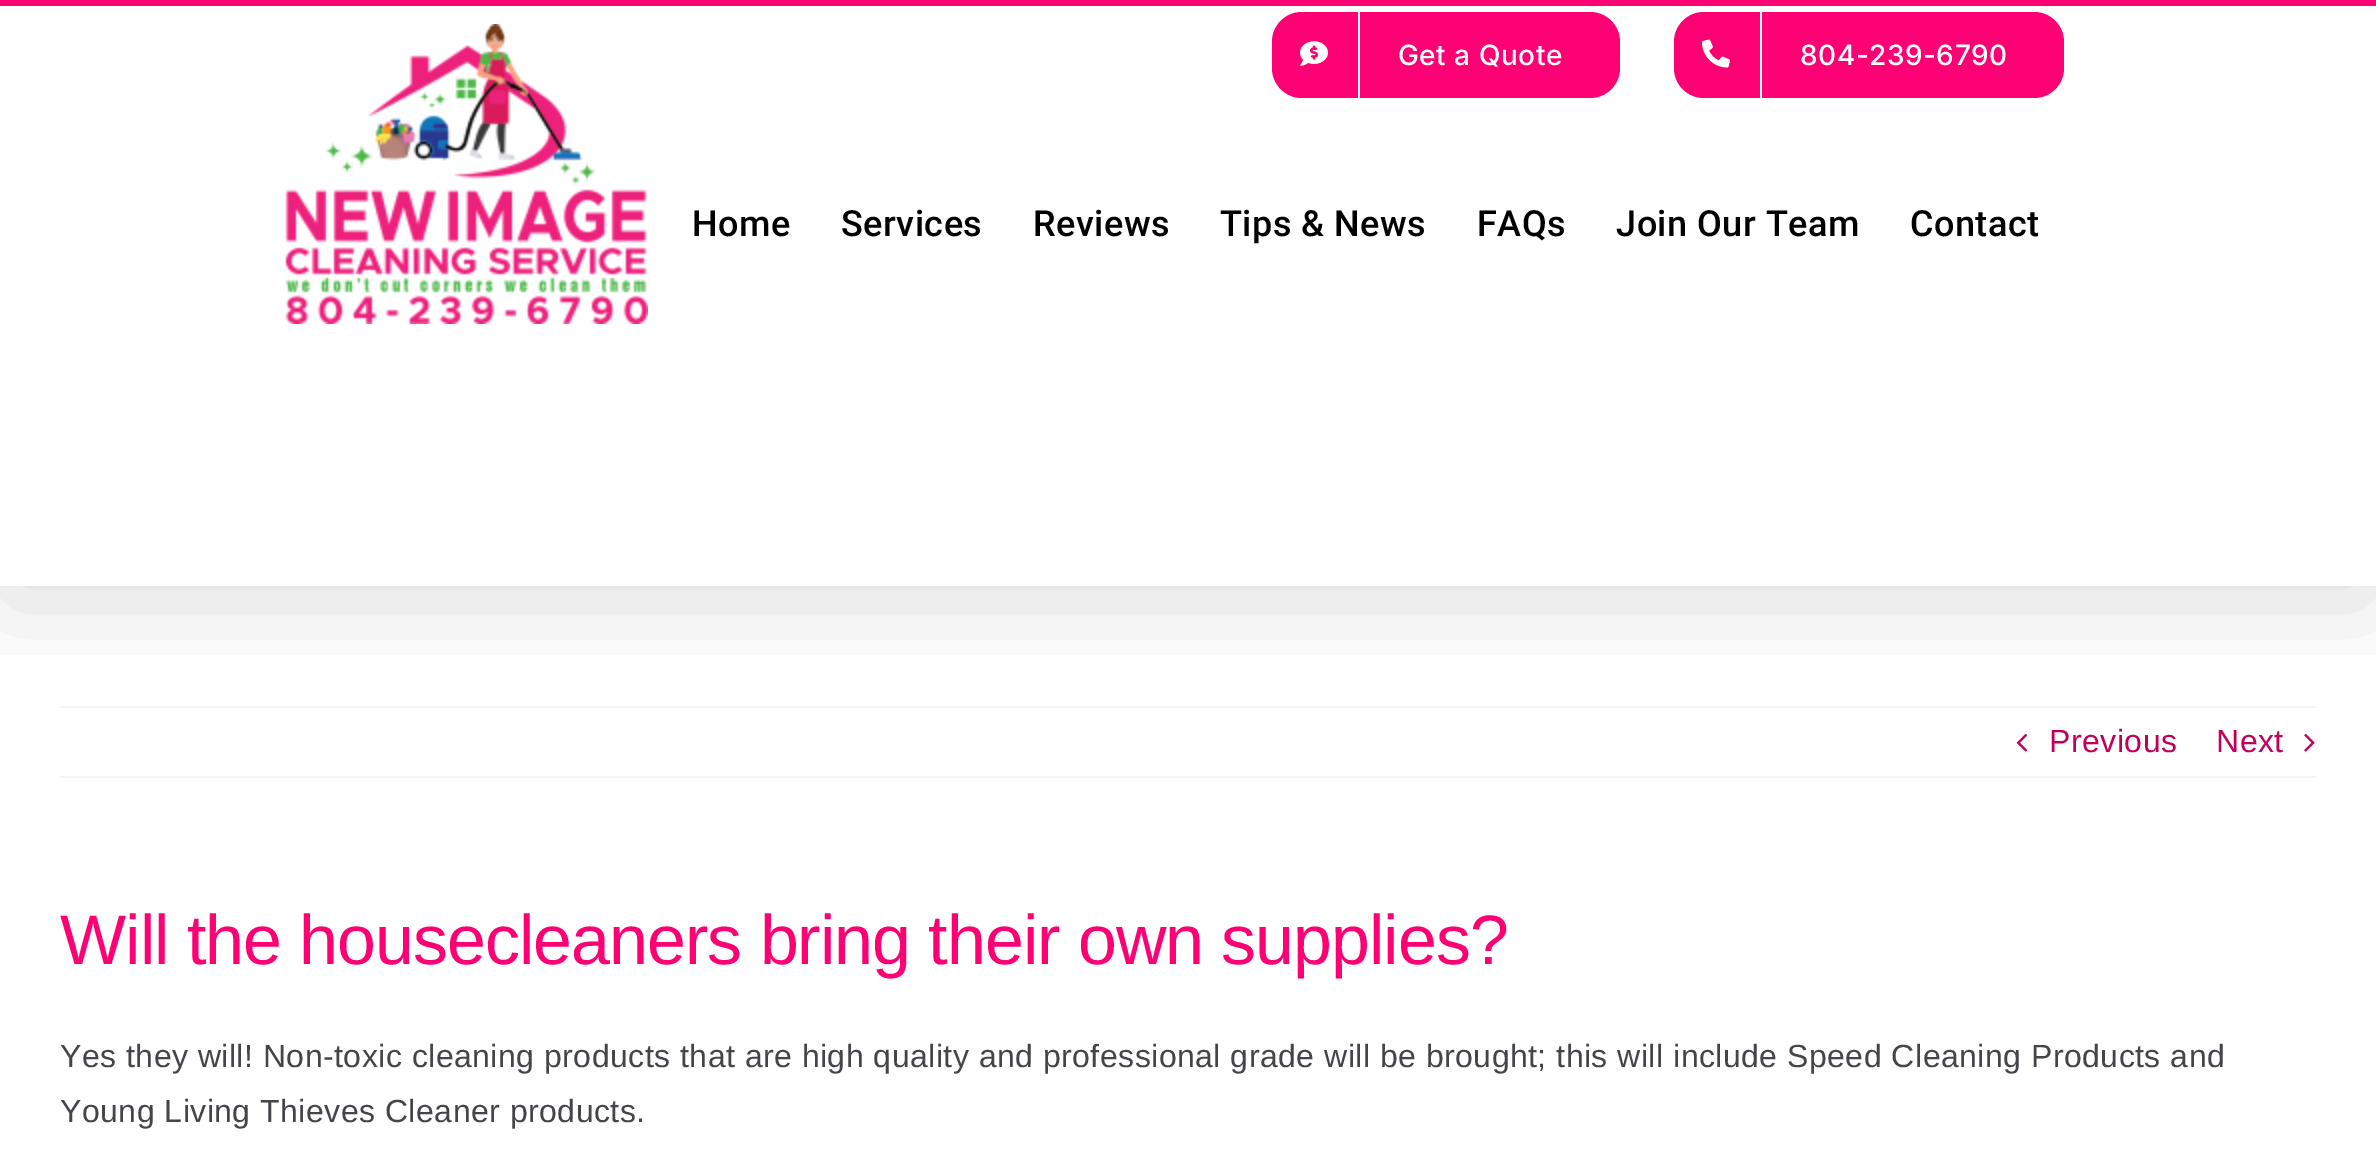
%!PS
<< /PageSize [2376 1159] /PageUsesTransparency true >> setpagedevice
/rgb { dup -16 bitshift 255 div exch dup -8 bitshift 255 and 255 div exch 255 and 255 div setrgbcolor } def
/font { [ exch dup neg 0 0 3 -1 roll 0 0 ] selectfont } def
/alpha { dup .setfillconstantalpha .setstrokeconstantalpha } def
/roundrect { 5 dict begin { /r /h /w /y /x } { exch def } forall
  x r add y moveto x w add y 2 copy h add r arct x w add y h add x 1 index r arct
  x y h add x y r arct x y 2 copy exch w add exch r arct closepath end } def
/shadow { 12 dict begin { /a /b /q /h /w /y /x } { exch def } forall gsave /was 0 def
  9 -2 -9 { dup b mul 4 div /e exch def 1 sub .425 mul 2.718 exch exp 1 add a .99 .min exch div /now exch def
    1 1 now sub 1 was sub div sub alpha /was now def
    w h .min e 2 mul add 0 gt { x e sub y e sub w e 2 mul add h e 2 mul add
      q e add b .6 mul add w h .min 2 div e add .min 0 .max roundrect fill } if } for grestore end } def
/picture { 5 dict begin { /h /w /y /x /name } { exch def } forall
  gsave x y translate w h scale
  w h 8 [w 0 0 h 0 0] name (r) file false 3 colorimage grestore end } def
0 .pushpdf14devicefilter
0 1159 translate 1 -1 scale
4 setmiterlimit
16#FFFFFF rgb
0 0 2376 1159 rectfill
16#F2F3F5 rgb
60 706 2256 2 rectfill
(pic4.raw) 2016 733 12 19 picture
(pic5.raw) 2304 733 11 19 picture
gsave
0 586 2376 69 rectclip
16#000000 rgb
4 24 2368 578 0 50 0.14 shadow
grestore
16#FD0074 rgb
0 0 2376 6 rectfill
1272 12 348 86 30 roundrect fill
16#FFFFFF rgb
1358 12 2 86 rectfill
(pic1.raw) 1300 41 28 25 picture
/Inter-Medium 28 font
1398 65 moveto 0.5 0 (Get a Quote) ashow
16#FD0074 rgb
1674 12 390 86 30 roundrect fill
16#FFFFFF rgb
1760 12 2 86 rectfill
(pic2.raw) 1702 39 28 29 picture
1800 65 moveto 0.5 0 (804-239-6790) ashow
(pic3.raw) 285 24 363 300 picture
/Roboto-Medium 36 font
16#000000 rgb
692 236 moveto 0.5 0 (Home) ashow
841 236 moveto 0.5 0 (Services) ashow
1033 236 moveto 0.5 0 (Reviews) ashow
1220 236 moveto 0.5 0 (Tips & News) ashow
1477 236 moveto 0.5 0 (FAQs) ashow
1616 236 moveto 0.5 0 (Join Our Team) ashow
1910 236 moveto 0.5 0 (Contact) ashow
16#F2F3F5 rgb
60 776 2256 2 rectfill
/LiberationSans-Regular 32 font
16#C2005A rgb
2049 752 moveto 0.48 0 (Previous) ashow
2216 752 moveto 0.48 0 (Next) ashow
/LiberationSans-Regular 70 font
16#FD0074 rgb
60 964 moveto -1.05 0 (Will the housecleaners bring their own supplies?) ashow
/LiberationSans-Regular 32 font
16#434549 rgb
60 1067 moveto 0.48 0 (Yes they will! Non-toxic cleaning products that are high quality and professional grade will be brought; this will include Speed Cleaning Products and) ashow
60 1122 moveto 0.48 0 (Young Living Thieves Cleaner products.) ashow
.poppdf14devicefilter showpage
